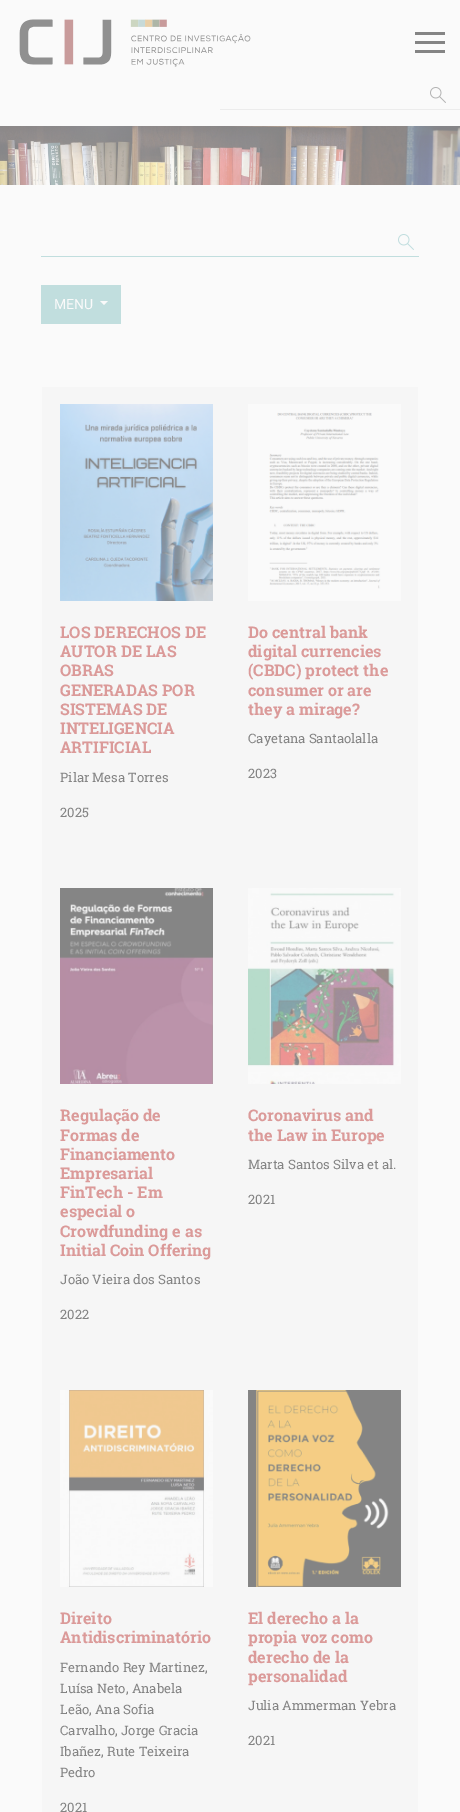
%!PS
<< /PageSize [460 1812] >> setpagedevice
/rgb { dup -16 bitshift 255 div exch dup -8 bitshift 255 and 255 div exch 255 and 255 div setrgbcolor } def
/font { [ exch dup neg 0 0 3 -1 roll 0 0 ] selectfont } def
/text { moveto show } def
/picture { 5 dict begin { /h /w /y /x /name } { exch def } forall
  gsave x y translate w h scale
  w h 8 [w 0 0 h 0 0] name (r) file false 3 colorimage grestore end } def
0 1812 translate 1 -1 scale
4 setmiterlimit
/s1 { /Roboto-Regular 14 font 16#FAFAFA rgb } def
/s2 { /RobotoSlab-Bold 16 font 16#DB9A99 rgb } def
/s3 { /RobotoSlab-Regular 13 font 16#848484 rgb } def
16#FAFAFA rgb
0 0 460 1812 rectfill
(pic1.raw) 19 19 232 48 picture
16#848484 rgb
415 41 30 3 rectfill
415 32 30 3 rectfill
415 50 30 3 rectfill
(pic2.raw) 430 87 16 16 picture
16#ECECEC rgb
220 109 240 1 rectfill
(pic3.raw) 0 126 460 59 picture
(pic4.raw) 398 234 16 16 picture
16#C1DEDE rgb
41 256 378 1 rectfill
41 285 80 39 rectfill
s1
(MENU) 54 309 text
100 301 moveto 108 301 lineto 104 305 lineto closepath fill
16#F6F6F6 rgb
42 387 376 1425 rectfill
(pic5.raw) 60 404 153 197 picture
s2
(LOS DERECHOS DE) 60 638 text
(AUTOR DE LAS) 60 657 text
(OBRAS) 60 676 text
(GENERADAS POR) 60 696 text
(SISTEMAS DE) 60 715 text
(INTELIGENCIA) 60 734 text
(ARTIFICIAL) 60 753 text
s3
(Pilar Mesa Torres) 60 782 text
(2025) 60 817 text
(pic6.raw) 248 404 153 197 picture
s2
(Do central bank) 248 638 text
(digital currencies) 248 657 text
(\(CBDC\) protect the) 248 676 text
(consumer or are) 248 696 text
(they a mirage?) 248 715 text
s3
(Cayetana Santaolalla) 248 743 text
(2023) 248 778 text
(pic7.raw) 60 888 153 196 picture
s2
(Regulação de) 60 1121 text
(Formas de) 60 1141 text
(Financiamento) 60 1160 text
(Empresarial) 60 1179 text
(FinTech - Em) 60 1198 text
(especial o) 60 1217 text
(Crowdfunding e as) 60 1237 text
(Initial Coin Offering) 60 1256 text
s3
(João Vieira dos Santos) 60 1284 text
(2022) 60 1319 text
(pic8.raw) 248 888 153 196 picture
s2
(Coronavirus and) 248 1121 text
(the Law in Europe) 248 1141 text
s3
(Marta Santos Silva et al.) 248 1169 text
(2021) 248 1204 text
(pic9.raw) 60 1390 153 197 picture
s2
(Direito) 60 1624 text
(Antidiscriminatório) 60 1643 text
s3
(Fernando Rey Martinez,) 60 1672 text
(Luísa Neto, Anabela) 60 1693 text
(Leão, Ana Sofia) 60 1714 text
(Carvalho, Jorge Gracia) 60 1735 text
(Ibañez, Rute Teixeira) 60 1756 text
(Pedro) 60 1777 text
(2021) 60 1812 text
(pic10.raw) 248 1390 153 197 picture
s2
(El derecho a la) 248 1624 text
(propia voz como) 248 1643 text
(derecho de la) 248 1663 text
(personalidad) 248 1682 text
s3
(Julia Ammerman Yebra) 248 1710 text
(2021) 248 1745 text
showpage
